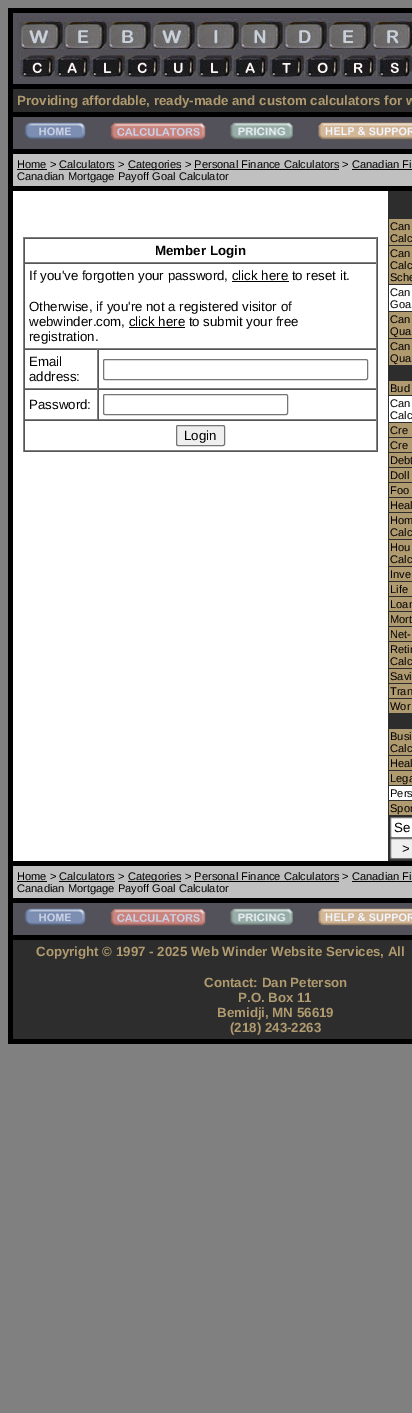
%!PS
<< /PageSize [412 1413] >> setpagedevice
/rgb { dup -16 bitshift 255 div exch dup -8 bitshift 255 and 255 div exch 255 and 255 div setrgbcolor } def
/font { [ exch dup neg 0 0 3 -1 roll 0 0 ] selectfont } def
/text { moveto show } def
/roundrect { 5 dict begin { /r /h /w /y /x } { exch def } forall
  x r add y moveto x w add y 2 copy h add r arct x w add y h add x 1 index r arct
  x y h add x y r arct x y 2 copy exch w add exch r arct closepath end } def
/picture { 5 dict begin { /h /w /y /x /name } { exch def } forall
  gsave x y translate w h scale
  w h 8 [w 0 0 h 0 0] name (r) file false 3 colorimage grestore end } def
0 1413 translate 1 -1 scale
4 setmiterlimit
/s1 { /LiberationSans-Bold 13.3 font 16#B09A6F rgb } def
/s2 { /LiberationSans-Regular 11.1 font 16#000000 rgb } def
/s3 { /LiberationSans-Bold 13.3 font 16#000000 rgb } def
/s4 { /LiberationSans-Regular 13.3 font 16#000000 rgb } def
16#808080 rgb
0 0 412 1413 rectfill
16#000000 rgb
8 8 404 1036 rectfill
16#53525A rgb
13 13 399 71 rectfill
(pic1.raw) 17 17 395 63 picture
16#2D2D2D rgb
13 89 399 23 rectfill
s1
(Providing affordable, ready-made and custom calculators for w) 17 105 text
16#53525A rgb
13 117 399 32 rectfill
(pic2.raw) 24 122 62 18 picture
(pic3.raw) 110 122 96 18 picture
(pic4.raw) 230 122 63 18 picture
(pic5.raw) 317 122 95 18 picture
16#C0C0C0 rgb
13 154 399 32 rectfill
s2
(Home > Calculators >) 17 168 text
17 169 30 1 rectfill
59 169 56 1 rectfill
128 169 53 1 rectfill
(Categories > Personal Finance Calculators > Canadian Fi) 128 168 text
194 169 145 1 rectfill
352 169 60 1 rectfill
(Canadian Mortgage Payoff Goal Calculator) 17 180 text
16#FFFFFF rgb
13 191 375 670 rectfill
16#808080 rgb
23 237 355 1 rectfill
16#555555 rgb
377 237 1 215 rectfill
23 451 355 1 rectfill
16#808080 rgb
23 237 1 215 rectfill
16#555555 rgb
24 238 353 1 rectfill
16#808080 rgb
376 238 1 25 rectfill
24 262 353 1 rectfill
16#555555 rgb
24 238 1 25 rectfill
s3
(Member Login) 155 255 text
16#555555 rgb
24 263 353 1 rectfill
16#808080 rgb
376 263 1 86 rectfill
24 348 353 1 rectfill
16#555555 rgb
24 263 1 86 rectfill
s4
(If you've forgotten your password, click here to reset it.) 29 280 text
232 281 57 1 rectfill
(Otherwise, if you're not a registered visitor of) 29 311 text
(webwinder.com, click here to submit your free) 29 326 text
129 327 56 1 rectfill
(registration.) 29 341 text
16#555555 rgb
24 349 353 1 rectfill
16#808080 rgb
97 349 1 40 rectfill
24 388 74 1 rectfill
16#555555 rgb
24 349 1 40 rectfill
s4
(Email) 29 366 text
(address:) 29 381 text
16#808080 rgb
376 349 1 40 rectfill
98 388 279 1 rectfill
16#555555 rgb
98 349 1 40 rectfill
16#767676 rgb
103.5 359.5 264 20 1.5 roundrect stroke
16#555555 rgb
24 389 353 1 rectfill
16#808080 rgb
97 389 1 31 rectfill
24 419 74 1 rectfill
16#555555 rgb
24 389 1 31 rectfill
s4
(Password:) 29 409 text
16#808080 rgb
376 389 1 31 rectfill
98 419 279 1 rectfill
16#555555 rgb
98 389 1 31 rectfill
16#767676 rgb
103.5 394.5 184 20 1.5 roundrect stroke
16#555555 rgb
24 420 353 1 rectfill
16#808080 rgb
376 420 1 31 rectfill
24 450 353 1 rectfill
16#555555 rgb
24 420 1 31 rectfill
16#EFEFEF rgb
176.5 425.5 48 20 1.5 roundrect gsave fill grestore
16#767676 rgb
stroke
s4
(Login) 184 440 text
16#2D2D2D rgb
388 191 24 670 rectfill
16#B09A6F rgb
389 219 23 26 rectfill
s2
(Can) 390 230 text
(Calc) 390 242 text
16#B09A6F rgb
389 246 23 38 rectfill
s2
(Can) 390 257 text
(Calc) 390 269 text
(Sche) 390 281 text
16#FFFFFF rgb
389 285 23 26 rectfill
s2
(Can) 390 296 text
(Goa) 390 308 text
16#B09A6F rgb
389 312 23 26 rectfill
s2
(Can) 390 323 text
(Qua) 390 335 text
16#B09A6F rgb
389 339 23 26 rectfill
s2
(Can) 390 350 text
(Qua) 390 362 text
16#B09A6F rgb
389 381 23 14 rectfill
s2
(Bud) 390 392 text
16#FFFFFF rgb
389 396 23 26 rectfill
s2
(Can) 390 407 text
(Calc) 390 419 text
16#B09A6F rgb
389 423 23 14 rectfill
s2
(Cre) 390 434 text
16#B09A6F rgb
389 438 23 14 rectfill
s2
(Cre) 390 449 text
16#B09A6F rgb
389 453 23 14 rectfill
s2
(Debt) 390 464 text
16#B09A6F rgb
389 468 23 14 rectfill
s2
(Doll) 390 479 text
16#B09A6F rgb
389 483 23 14 rectfill
s2
(Foo) 390 494 text
16#B09A6F rgb
389 498 23 14 rectfill
s2
(Heal) 390 509 text
16#B09A6F rgb
389 513 23 26 rectfill
s2
(Hom) 390 524 text
(Calc) 390 536 text
16#B09A6F rgb
389 540 23 26 rectfill
s2
(Hou) 390 551 text
(Calc) 390 563 text
16#B09A6F rgb
389 567 23 14 rectfill
s2
(Inve) 390 578 text
16#B09A6F rgb
389 582 23 14 rectfill
s2
(Life) 390 593 text
16#B09A6F rgb
389 597 23 14 rectfill
s2
(Loan) 390 608 text
16#B09A6F rgb
389 612 23 14 rectfill
s2
(Mort) 390 623 text
16#B09A6F rgb
389 627 23 14 rectfill
s2
(Net-) 390 638 text
16#B09A6F rgb
389 642 23 26 rectfill
s2
(Retir) 390 653 text
(Calc) 390 665 text
16#B09A6F rgb
389 669 23 14 rectfill
s2
(Savi) 390 680 text
16#B09A6F rgb
389 684 23 14 rectfill
s2
(Tran) 390 695 text
16#B09A6F rgb
389 699 23 14 rectfill
s2
(Wor) 390 710 text
16#B09A6F rgb
389 729 23 26 rectfill
s2
(Busi) 390 740 text
(Calc) 390 752 text
16#B09A6F rgb
389 756 23 14 rectfill
s2
(Heal) 390 767 text
16#B09A6F rgb
389 771 23 14 rectfill
s2
(Lega) 390 782 text
16#FFFFFF rgb
389 786 23 14 rectfill
s2
(Pers) 390 797 text
16#B09A6F rgb
389 801 23 14 rectfill
s2
(Spor) 390 812 text
16#FFFFFF rgb
390.5 817.5 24 20 1.5 roundrect gsave fill grestore
16#767676 rgb
stroke
s4
(Se) 394 832 text
16#EFEFEF rgb
390.5 838.5 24 20 1.5 roundrect gsave fill grestore
16#767676 rgb
stroke
s4
(>) 402 853 text
16#C0C0C0 rgb
13 866 399 32 rectfill
s2
(Home > Calculators >) 17 880 text
17 881 30 1 rectfill
59 881 56 1 rectfill
128 881 53 1 rectfill
(Categories > Personal Finance Calculators > Canadian Fi) 128 880 text
194 881 145 1 rectfill
352 881 60 1 rectfill
(Canadian Mortgage Payoff Goal Calculator) 17 892 text
16#53525A rgb
13 903 399 32 rectfill
(pic2.raw) 24 908 62 18 picture
(pic3.raw) 110 908 96 18 picture
(pic4.raw) 230 908 63 18 picture
(pic5.raw) 317 908 95 18 picture
16#2D2D2D rgb
13 940 399 99 rectfill
s1
(Copyright © 1997 - 2025 Web Winder Website Services, All) 36 956 text
(Contact: Dan Peterson) 204 987 text
(P.O. Box 11) 238 1002 text
(Bemidji, MN 56619) 217 1017 text
(\(218\) 243-2263) 230 1032 text
showpage
